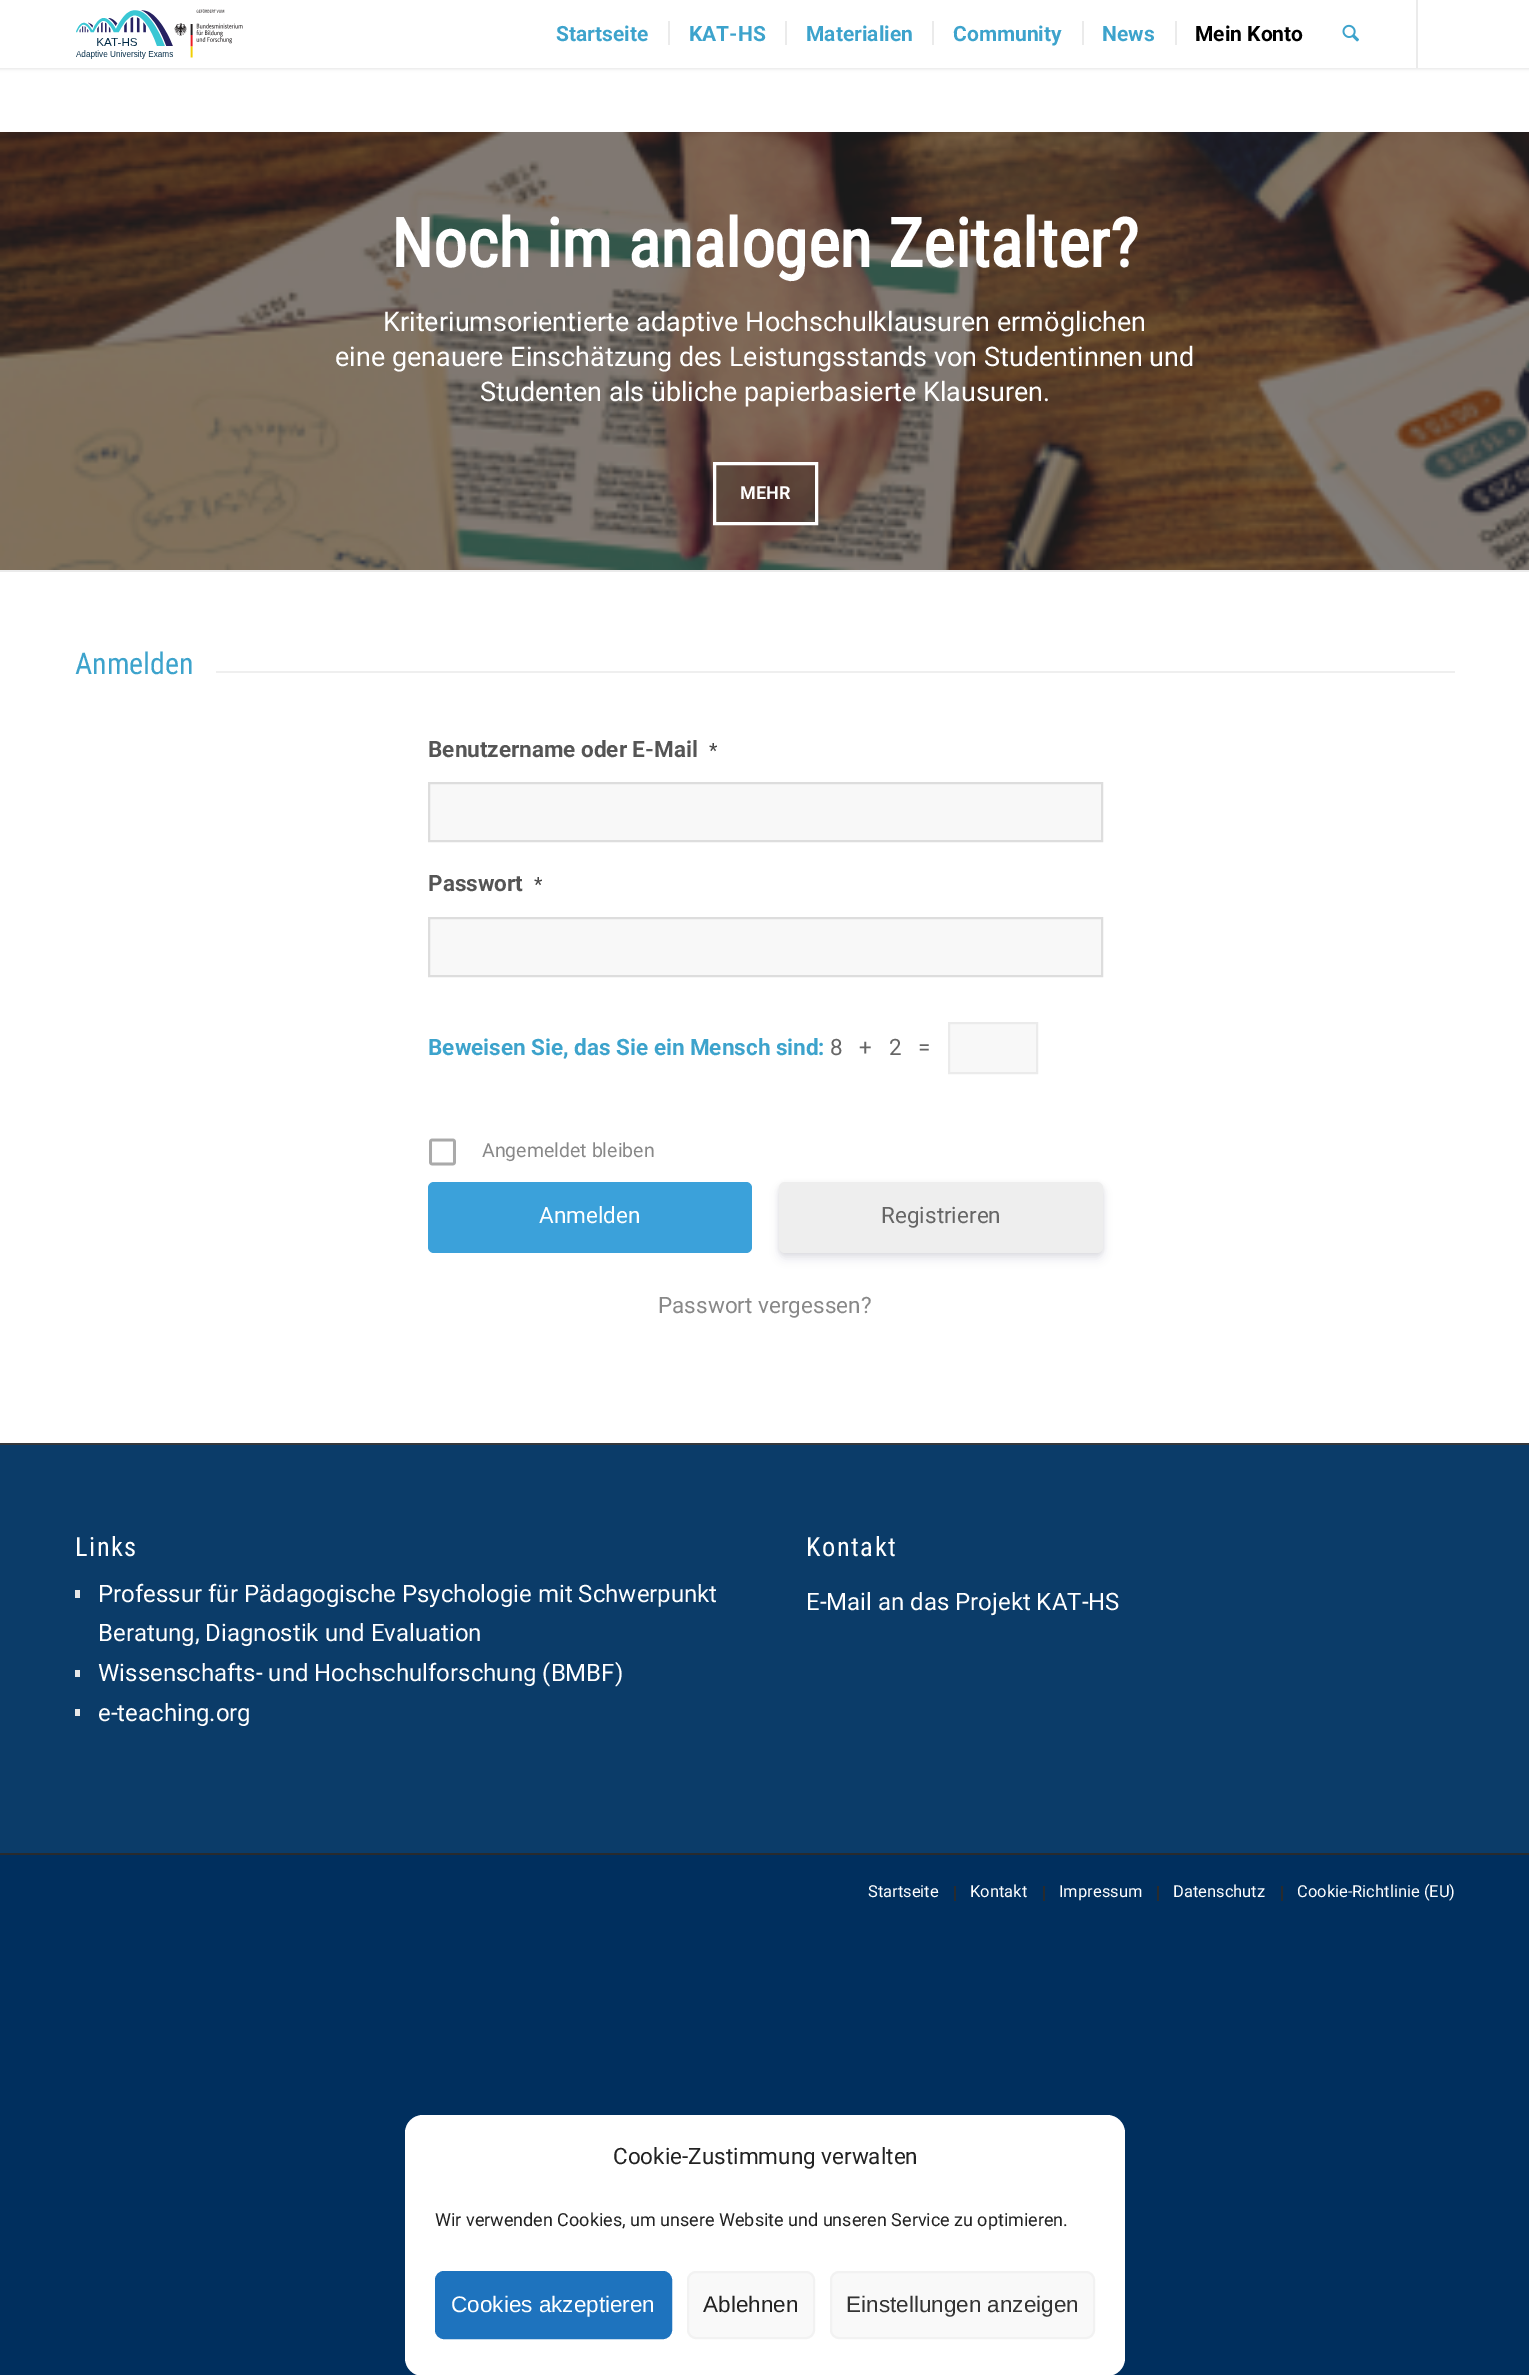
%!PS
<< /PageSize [1529 2375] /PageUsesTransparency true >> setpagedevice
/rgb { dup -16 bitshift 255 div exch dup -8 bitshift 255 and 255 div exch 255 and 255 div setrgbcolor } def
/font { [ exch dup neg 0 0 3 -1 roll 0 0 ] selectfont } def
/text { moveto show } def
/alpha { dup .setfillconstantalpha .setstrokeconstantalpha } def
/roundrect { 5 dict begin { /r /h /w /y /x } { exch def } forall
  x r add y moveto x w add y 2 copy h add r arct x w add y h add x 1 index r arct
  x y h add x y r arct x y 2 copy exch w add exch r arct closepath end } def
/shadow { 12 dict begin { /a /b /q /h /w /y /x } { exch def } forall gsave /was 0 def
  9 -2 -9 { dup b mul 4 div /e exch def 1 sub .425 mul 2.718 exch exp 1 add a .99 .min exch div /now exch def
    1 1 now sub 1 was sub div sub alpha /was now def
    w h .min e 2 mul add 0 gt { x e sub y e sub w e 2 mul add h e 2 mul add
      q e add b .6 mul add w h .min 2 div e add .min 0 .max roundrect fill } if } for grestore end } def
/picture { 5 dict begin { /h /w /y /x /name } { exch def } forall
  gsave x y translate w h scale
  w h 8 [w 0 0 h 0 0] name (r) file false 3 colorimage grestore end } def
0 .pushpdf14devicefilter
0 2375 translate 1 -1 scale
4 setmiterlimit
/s1 { /Roboto-Bold 21 font 16#3DA3CC rgb } def
/s2 { /Roboto-Bold 21 font 16#000000 rgb } def
/s3 { /RobotoCondensed-Bold 67.5 font 16#FFFFFF rgb } def
/s4 { /Roboto-Regular 27 font 16#FFFFFF rgb } def
/s5 { /Roboto-Bold 18 font 16#FFFFFF rgb } def
/s6 { /RobotoCondensed-Regular 30 font 16#3DA3CC rgb } def
/s7 { /Roboto-Bold 22.5 font 16#555555 rgb } def
/s8 { /Roboto-Regular 19.5 font 16#444444 rgb } def
/s9 { /Roboto-Bold 22.5 font 16#3DA3CC rgb } def
/s10 { /Roboto-Regular 22.5 font 16#666666 rgb } def
/s11 { /Roboto-Regular 19.5 font 16#888888 rgb } def
/s12 { /Roboto-Regular 22.5 font 16#FFFFFF rgb } def
/s13 { /Roboto-Regular 22.5 font 16#888888 rgb } def
/s14 { /Roboto-Regular 24 font 16#FFFFFF rgb } def
/s15 { /Roboto-Regular 16.5 font 16#FFFFFF rgb } def
/s16 { /Roboto-Regular 22.5 font 16#222222 rgb } def
/s17 { /Roboto-Regular 18 font 16#222222 rgb } def
/s18 { /LiberationSans-Regular 22.5 font 16#FFFFFF rgb } def
/s19 { /LiberationSans-Regular 22.5 font 16#222222 rgb } def
/s20 { /LiberationSans-Regular 22.5 font 16#333333 rgb } def
16#002F5E rgb
0 0 1529 2375 rectfill
16#FFFFFF rgb
0 68 1529 1375 rectfill
16#000000 rgb
-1 -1 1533 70 0 1.5 0.1 shadow
16#FFFFFF rgb
0 0 1529 68 rectfill
(pic1.raw) 76 9 167 50 picture
16#EBEBEB rgb
1416 0 2 68 rectfill
s1
(Startseite) 556 41 text
(KAT-HS) 689 41 text
16#EBEBEB rgb
668 21 2 24 rectfill
s1
(Materialien) 806 41 text
16#EBEBEB rgb
785 21 2 24 rectfill
s1
(Community) 953 41 text
16#EBEBEB rgb
932 21 2 24 rectfill
s1
(News) 1102 41 text
16#EBEBEB rgb
1082 21 2 24 rectfill
s2
(Mein Konto) 1195 41 text
16#EBEBEB rgb
1175 21 2 24 rectfill
(pic2.raw) 1342 24 17 18 picture
(pic3.raw) 0 132 1529 438 picture
s3
(Noch im analogen Zeitalter?) 391 267 text
s4
(Kriteriumsorientierte adaptive Hochschulklausuren ermöglichen) 383 331 text
(eine genauere Einschätzung des Leistungsstands von Studentinnen und) 335 366 text
(Studenten als übliche papierbasierte Klausuren.) 480 401 text
0.2 alpha
16#000000 rgb
714.5 463.5 moveto 816.5 463.5 lineto 816.5 523.5 lineto 714.5 523.5 lineto closepath fill
1 alpha
16#FFFFFF rgb
3 setlinewidth
714.5 463.5 moveto 816.5 463.5 lineto 816.5 523.5 lineto 714.5 523.5 lineto closepath stroke
s5
(MEHR) 740 499 text
16#EBEBEB rgb
0 570 1529 2 rectfill
s6
(Anmelden) 75 674 text
16#EFEFEF rgb
216 671 1239 2 rectfill
s7
(Benutzername oder E-Mail) 428 757 text
s8
(*) 709 757 text
16#F8F8F8 rgb
429 783 moveto 1102 783 lineto 1102 841 lineto 429 841 lineto closepath gsave fill grestore
16#DDDDDD rgb
2 setlinewidth
stroke
s7
(Passwort) 428 891 text
s8
(*) 534 891 text
16#F8F8F8 rgb
429 918 moveto 1102 918 lineto 1102 976 lineto 429 976 lineto closepath gsave fill grestore
16#DDDDDD rgb
stroke
s9
(Beweisen Sie, das Sie ein Mensch sind:) 428 1055 text
s10
(8   +   2   =) 830 1055 text
16#F8F8F8 rgb
949 1023 moveto 1037 1023 lineto 1037 1073 lineto 949 1073 lineto closepath gsave fill grestore
16#EBEBEB rgb
stroke
(pic4.raw) 429 1138 27 28 picture
s11
(Angemeldet bleiben) 482 1157 text
16#3BA1DA rgb
428 1182 324 71 6 roundrect fill
s12
(Anmelden) 539 1223 text
16#000000 rgb
779 1184 324 70 6 2 0.08 shadow
16#32325D rgb
779 1188 324 71 6 4.5 0.11 shadow
16#EEEEEE rgb
779 1182 324 71 6 roundrect fill
s10
(Registrieren) 881 1223 text
s13
(Passwort vergessen?) 658 1313 text
16#0B3C69 rgb
0 1445 1529 408 rectfill
16#35383C rgb
0 1443 1529 2 rectfill
/RobotoCondensed-Regular 26.5 font
16#FFFFFF rgb
75 1556 moveto 1.5 0 (Links) ashow
16#E8E8E8 rgb
75 1590 5 8 rectfill
s14
(Professur für Pädagogische Psychologie mit Schwerpunkt) 98 1602 text
(Beratung, Diagnostik und Evaluation) 98 1641 text
16#E8E8E8 rgb
75 1670 5 7 rectfill
s14
(Wissenschafts- und Hochschulforschung \(BMBF\)) 98 1681 text
16#E8E8E8 rgb
75 1709 5 7 rectfill
s14
(e-teaching.org) 98 1721 text
/RobotoCondensed-Regular 26.5 font
806 1556 moveto 1.5 0 (Kontakt) ashow
s14
(E-Mail an das Projekt KAT-HS) 806 1610 text
16#282B2E rgb
0 1853 1529 2 rectfill
s15
(Startseite) 868 1897 text
16#282B2E rgb
954 1886 2 15 rectfill
s15
(Kontakt) 970 1897 text
16#282B2E rgb
1043 1886 2 15 rectfill
s15
(Impressum) 1059 1897 text
16#282B2E rgb
1157 1886 2 15 rectfill
s15
(Datenschutz) 1173 1897 text
16#282B2E rgb
1281 1886 2 15 rectfill
s15
(Cookie-Richtlinie \(EU\)) 1297 1897 text
405 2115 720 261 18 roundrect fill
s16
(Cookie-Zustimmung verwalten) 613 2164 text
s17
(Wir verwenden Cookies, um unsere Website und unseren Service zu optimieren.) 435 2226 text
16#1E73BE rgb
436 2272 235 66 8 roundrect gsave fill grestore
stroke
s18
(Cookies akzeptieren) 451 2312 text
16#F9F9F9 rgb
688 2272 126 66 8 roundrect gsave fill grestore
16#F2F2F2 rgb
stroke
s19
(Ablehnen) 703 2312 text
16#F9F9F9 rgb
831 2272 263 66 8 roundrect gsave fill grestore
16#F2F2F2 rgb
stroke
s20
(Einstellungen anzeigen) 846 2312 text
.poppdf14devicefilter showpage
